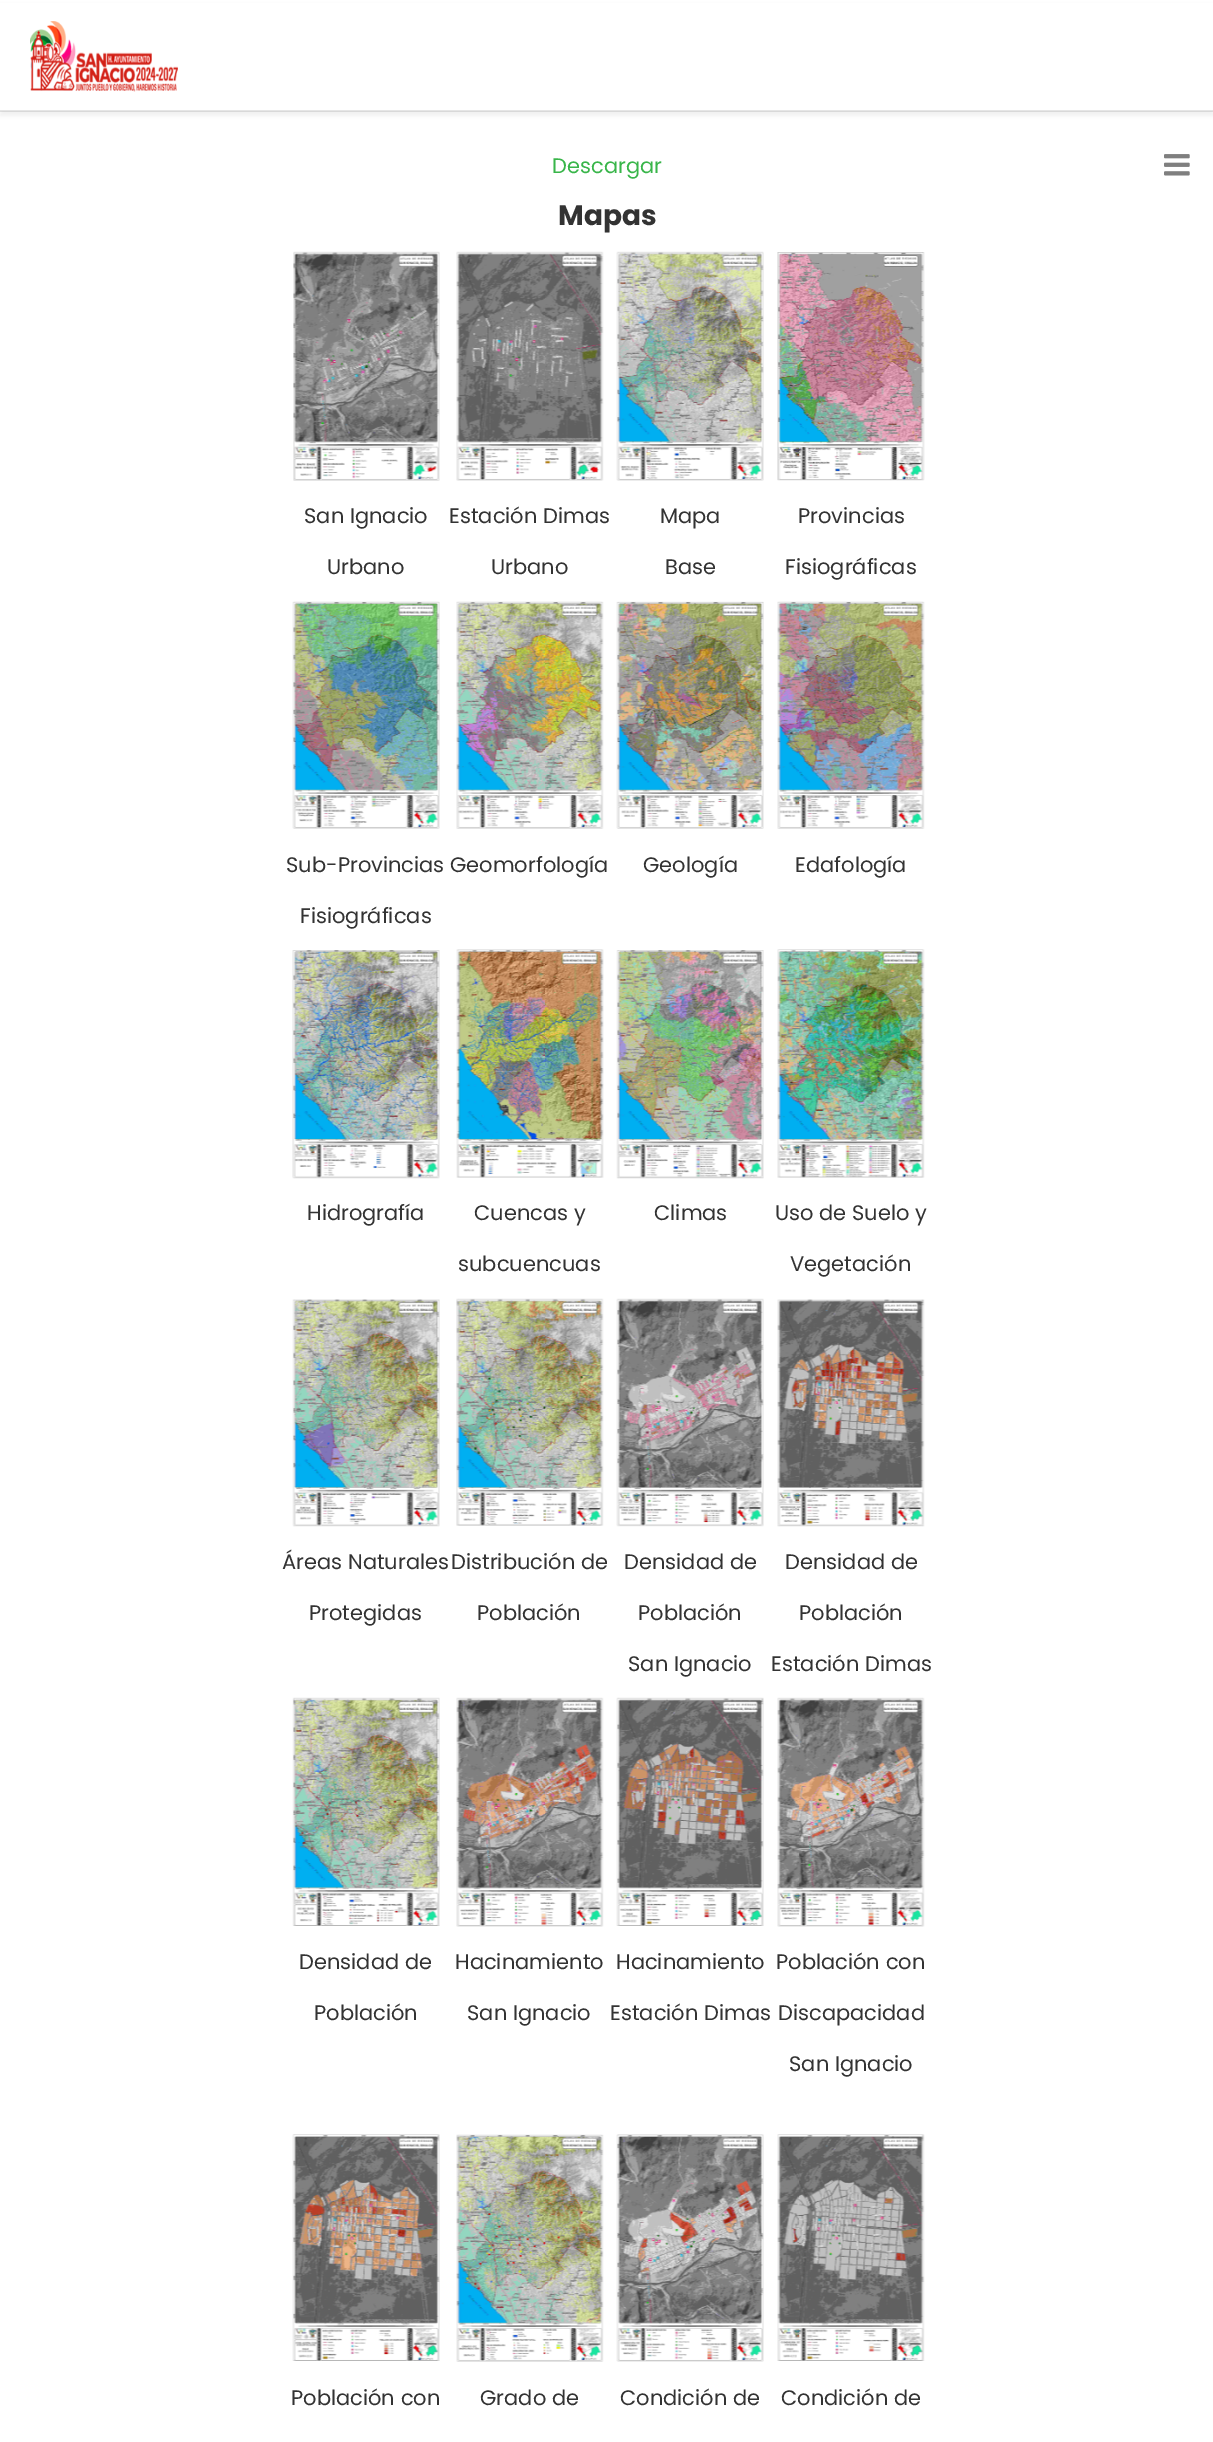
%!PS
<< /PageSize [1213 2442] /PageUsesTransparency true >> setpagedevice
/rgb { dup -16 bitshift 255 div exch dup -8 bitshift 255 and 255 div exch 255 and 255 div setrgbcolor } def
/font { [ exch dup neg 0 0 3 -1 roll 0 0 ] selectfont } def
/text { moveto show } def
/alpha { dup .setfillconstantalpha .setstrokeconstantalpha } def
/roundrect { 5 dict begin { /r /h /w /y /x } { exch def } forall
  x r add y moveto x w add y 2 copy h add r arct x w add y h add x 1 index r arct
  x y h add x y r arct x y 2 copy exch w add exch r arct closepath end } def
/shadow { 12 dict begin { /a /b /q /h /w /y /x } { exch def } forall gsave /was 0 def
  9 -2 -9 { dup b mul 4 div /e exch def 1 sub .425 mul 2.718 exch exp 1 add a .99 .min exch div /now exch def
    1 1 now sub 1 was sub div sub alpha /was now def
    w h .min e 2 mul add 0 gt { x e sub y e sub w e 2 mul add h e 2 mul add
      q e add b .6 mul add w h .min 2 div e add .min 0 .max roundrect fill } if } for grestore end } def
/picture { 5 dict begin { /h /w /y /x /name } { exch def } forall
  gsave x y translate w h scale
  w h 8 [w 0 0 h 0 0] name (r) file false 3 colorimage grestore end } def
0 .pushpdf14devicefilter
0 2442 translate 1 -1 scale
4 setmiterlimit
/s1 { /Poppins-Regular 21 font 16#39B54A rgb } def
/s2 { /Poppins-Bold 28 font 16#333333 rgb } def
/s3 { /Poppins-Regular 21 font 16#333333 rgb } def
16#FFFFFF rgb
0 0 1213 2442 rectfill
16#000000 rgb
0 5 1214 111 0 2 0.05 shadow
16#FFFFFF rgb
0 3 1213 108 rectfill
0.1 alpha
16#000000 rgb
0 110 1213 2 rectfill
1 alpha
(pic1.raw) 30 21 148 71 picture
(pic2.raw) 1164 154 26 22 picture
s1
(Descargar) 552 173 text
s2
(Mapas) 558 225 text
(pic3.raw) 293 251 147 230 picture
s3
(San Ignacio) 304 523 text
(Urbano) 327 574 text
(pic4.raw) 456 251 148 230 picture
(Estación Dimas) 449 523 text
(Urbano) 491 574 text
(pic5.raw) 616 251 148 230 picture
(Mapa) 660 523 text
(Base) 665 574 text
(pic6.raw) 777 252 148 229 picture
(Provincias) 798 523 text
(Fisiográficas) 785 574 text
(pic7.raw) 456 601 148 228 picture
(pic8.raw) 292 601 148 228 picture
(Sub-Provincias Geomorfología) 286 872 text
(Fisiográficas) 300 923 text
(pic9.raw) 616 601 148 228 picture
(Geología) 643 872 text
(pic10.raw) 777 601 148 228 picture
(Edafología) 795 872 text
(pic11.raw) 292 950 148 229 picture
(Hidrografía) 307 1220 text
(pic12.raw) 456 949 148 229 picture
(Cuencas y) 474 1220 text
(subcuencuas) 458 1271 text
(pic13.raw) 616 950 148 229 picture
(Climas) 654 1220 text
(pic14.raw) 777 949 148 229 picture
(Uso de Suelo y) 775 1220 text
(Vegetación) 790 1271 text
(pic15.raw) 292 1299 148 228 picture
(Áreas Naturales) 282 1569 text
(Protegidas) 309 1620 text
(pic16.raw) 456 1298 148 228 picture
(Distribución de) 451 1569 text
(Población) 477 1620 text
(pic17.raw) 616 1298 148 229 picture
(Densidad de) 624 1569 text
(Población) 638 1620 text
(San Ignacio) 628 1671 text
(pic18.raw) 777 1299 148 228 picture
(Densidad de) 785 1569 text
(Población) 799 1620 text
(Estación Dimas) 771 1671 text
(pic19.raw) 292 1697 148 229 picture
(Densidad de) 299 1969 text
(Población) 314 2020 text
(pic20.raw) 456 1697 148 230 picture
(Hacinamiento) 455 1969 text
(San Ignacio) 467 2020 text
(pic21.raw) 616 1697 148 229 picture
(Hacinamiento) 616 1969 text
(Estación Dimas) 610 2020 text
(pic22.raw) 777 1697 148 230 picture
(Población con) 776 1969 text
(Discapacidad) 778 2020 text
(San Ignacio) 789 2071 text
(pic23.raw) 292 2134 148 227 picture
(Población con) 291 2405 text
(pic24.raw) 456 2134 148 228 picture
(Grado de) 480 2405 text
(pic25.raw) 616 2134 148 228 picture
(Condición de) 620 2405 text
(pic26.raw) 777 2134 148 227 picture
(Condición de) 781 2405 text
.poppdf14devicefilter showpage
